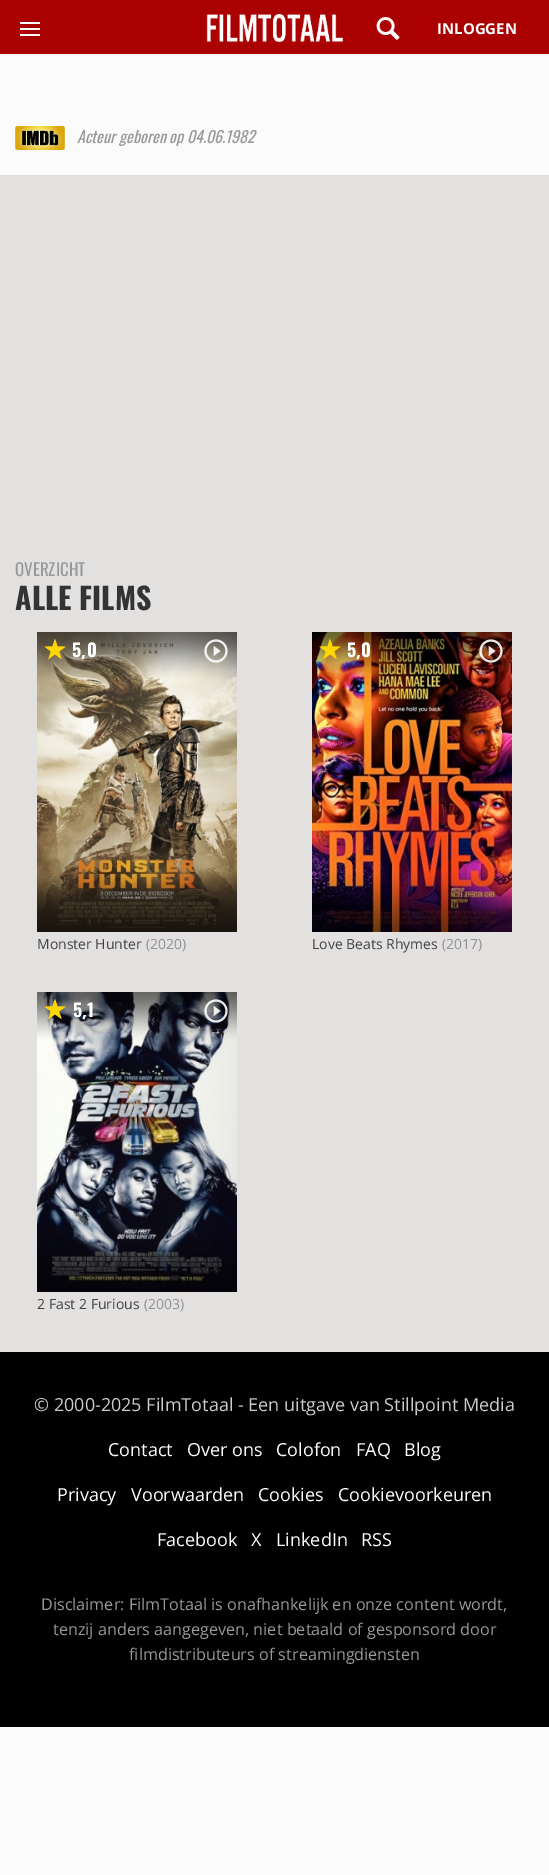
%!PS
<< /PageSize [549 1875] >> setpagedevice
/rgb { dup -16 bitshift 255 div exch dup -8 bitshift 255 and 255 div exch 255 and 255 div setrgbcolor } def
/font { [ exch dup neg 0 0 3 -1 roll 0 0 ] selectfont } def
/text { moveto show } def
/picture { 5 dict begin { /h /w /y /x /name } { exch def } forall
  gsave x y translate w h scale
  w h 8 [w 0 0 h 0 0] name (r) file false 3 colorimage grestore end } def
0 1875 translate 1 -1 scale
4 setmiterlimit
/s1 { /OpenSans-Bold 15 font 16#FFFFFF rgb } def
/s2 { /Oswald-Italic 16 font 16#999999 rgb } def
/s3 { /Oswald-Regular 17 font 16#999999 rgb } def
/s4 { /Oswald-Bold 30 font 16#333333 rgb } def
/s5 { /Oswald-Bold 18 font 16#FFFFFF rgb } def
/s6 { /OpenSans-Bold 18 font 16#FFFFFF rgb } def
/s7 { /OpenSans-Regular 14 font 16#444444 rgb } def
/s8 { /OpenSans-Regular 14 font 16#919191 rgb } def
/s9 { /OpenSans-Regular 18 font 16#CCCCCC rgb } def
/s10 { /OpenSans-Regular 18 font 16#FFFFFF rgb } def
/s11 { /OpenSans-Regular 16.2 font 16#999999 rgb } def
16#FBFBFB rgb
0 0 549 1875 rectfill
16#AA0203 rgb
0 0 549 54 rectfill
16#FFFFFF rgb
20 28 20 2 rectfill
20 22 20 2 rectfill
20 34 20 2 rectfill
(pic1.raw) 206 14 137 28 picture
(pic2.raw) 376 17 24 23 picture
16#AA0000 rgb
420 15 114 27 rectfill
s1
(INLOGGEN) 437 34 text
(pic3.raw) 15 126 50 24 picture
s2
(Acteur geboren op 04.06.1982) 77 143 text
16#E3E0E0 rgb
0 175 549 1177 rectfill
s3
(OVERZICHT) 15 576 text
s4
(ALLE FILMS) 15 610 text
(pic4.raw) 37 632 200 300 picture
(pic5.raw) 37 632 200 300 picture
(pic6.raw) 44 638 22 22 picture
s5
(5) 72 657 text
s6
(,) 81 657 text
s5
(0) 87 657 text
(pic7.raw) 204 639 24 24 picture
s7
(Monster Hunter) 37 949 text
s8
(\(2020\)) 146 949 text
(pic8.raw) 312 632 200 300 picture
(pic9.raw) 312 632 200 300 picture
(pic10.raw) 319 638 22 22 picture
s5
(5) 347 657 text
s6
(,) 356 657 text
s5
(0) 361 657 text
(pic11.raw) 479 639 24 24 picture
s7
(Love Beats Rhymes) 312 949 text
s8
(\(2017\)) 442 949 text
(pic12.raw) 37 992 200 300 picture
(pic13.raw) 37 992 200 300 picture
(pic14.raw) 44 998 22 22 picture
s5
(5) 73 1017 text
s6
(,) 82 1017 text
s5
(1) 87 1017 text
(pic15.raw) 204 999 24 24 picture
s7
(2 Fast 2 Furious) 37 1309 text
s8
(\(2003\)) 144 1309 text
16#000000 rgb
0 1352 549 375 rectfill
s9
(© 2000-2025 FilmTotaal - Een uitgave van Stillpoint Media) 34 1411 text
s10
(Contact) 108 1456 text
(Over ons) 187 1456 text
(Colofon) 276 1456 text
(FAQ) 356 1456 text
(Blog) 404 1456 text
(Privacy) 57 1501 text
(Voorwaarden) 131 1501 text
(Cookies) 258 1501 text
(Cookievoorkeuren) 338 1501 text
(Facebook) 157 1546 text
(X) 251 1546 text
(LinkedIn) 276 1546 text
(RSS) 361 1546 text
s11
(Disclaimer: FilmTotaal is onafhankelijk en onze content wordt,) 41 1610 text
(tenzij anders aangegeven, niet betaald of gesponsord door) 53 1635 text
(filmdistributeurs of streamingdiensten) 129 1660 text
showpage
